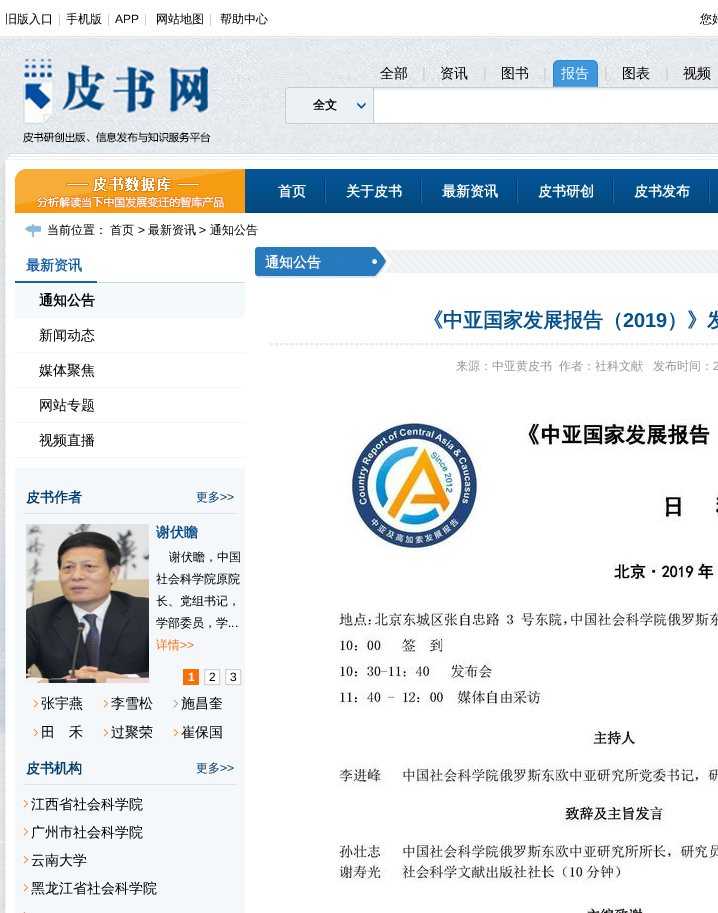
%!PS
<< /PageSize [718 913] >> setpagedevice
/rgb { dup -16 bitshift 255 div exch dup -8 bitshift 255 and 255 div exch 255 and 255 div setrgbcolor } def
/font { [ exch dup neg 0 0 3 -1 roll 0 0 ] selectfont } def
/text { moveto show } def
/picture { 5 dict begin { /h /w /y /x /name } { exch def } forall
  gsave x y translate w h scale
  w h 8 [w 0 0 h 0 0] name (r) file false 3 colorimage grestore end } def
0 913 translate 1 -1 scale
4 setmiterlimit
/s1 { /WenQuanYiZenHei-Medium 12 font 16#000002 rgb } def
/s2 { /LiberationSans-Regular 12 font 16#CCCCCC rgb } def
/s3 { /LiberationSans-Regular 12 font 16#000002 rgb } def
/s4 { /WenQuanYiZenHei-Medium 14 font 16#000002 rgb } def
/s5 { /LiberationSans-Regular 14 font 16#CCCCCC rgb } def
/s6 { /WenQuanYiZenHei-Medium 14 font 16#FFFFFF rgb } def
/s7 { /WenQuanYiZenHei-Bold 12 font 16#000002 rgb } def
/s8 { /WenQuanYiZenHei-Bold 14 font 16#FFFFFF rgb } def
/s9 { /WenQuanYiZenHei-Bold 14 font 16#1760A5 rgb } def
/s10 { /WenQuanYiZenHei-Bold 14 font 16#000002 rgb } def
/s11 { /WenQuanYiZenHei-Bold 14 font 16#043E6E rgb } def
/s12 { /WenQuanYiZenHei-Medium 12 font 16#043E6E rgb } def
/s13 { /LiberationSans-Regular 12 font 16#043E6E rgb } def
/s14 { /WenQuanYiZenHei-Bold 14 font 16#044984 rgb } def
/s15 { /WenQuanYiZenHei-Medium 12 font 16#FB6D07 rgb } def
/s16 { /LiberationSans-Regular 12 font 16#FB6D07 rgb } def
/s17 { /LiberationSans-Bold 12 font 16#FFFFFF rgb } def
/s18 { /WenQuanYiZenHei-Bold 20 font 16#03518F rgb } def
/s19 { /LiberationSans-Bold 20 font 16#03518F rgb } def
/s20 { /WenQuanYiZenHei-Medium 12 font 16#999999 rgb } def
/s21 { /LiberationSans-Regular 12 font 16#999999 rgb } def
16#FFFFFF rgb
0 0 718 913 rectfill
(pic1.raw) 0 756 6 157 picture
(pic2.raw) 0 0 718 756 picture
s1
(旧版入口) 5 23 text
s2
(|) 58 23 text
s1
(手机版) 66 23 text
s2
(|) 107 23 text
s3
(APP) 115 23 text
s2
(|) 144 23 text
s1
(网站地图) 156 23 text
s2
(|) 209 23 text
s1
(帮助中心) 220 23 text
(您好) 700 23 text
(pic3.raw) 22 58 190 90 picture
s4
(全部) 380 78 text
s5
(|) 422 78 text
s4
(资讯) 440 78 text
s5
(|) 483 78 text
s4
(图书) 501 78 text
s5
(|) 543 78 text
(pic4.raw) 553 60 45 27 picture
s6
(报告) 561 78 text
s5
(|) 604 78 text
s4
(图表) 622 78 text
s5
(|) 665 78 text
s4
(视频) 683 78 text
(pic5.raw) 285 87 89 37 picture
(pic6.raw) 357 102 9 7 picture
s7
(全文) 313 109 text
(pic7.raw) 374 87 344 37 picture
(pic8.raw) 0 153 718 16 picture
(pic9.raw) 0 169 718 744 picture
(pic10.raw) 245 169 473 44 picture
(pic11.raw) 15 169 230 44 picture
(pic12.raw) 324 179 2 24 picture
s8
(首页) 278 196 text
(pic12.raw) 420 179 2 24 picture
(关于皮书) 346 196 text
(pic12.raw) 516 179 2 24 picture
(最新资讯) 442 196 text
(pic12.raw) 612 179 2 24 picture
(皮书研创) 538 196 text
(pic12.raw) 708 179 2 24 picture
(皮书发布) 634 196 text
(pic13.raw) 25 224 16 13 picture
s1
(当前位置：) 47 234 text
(首页) 110 234 text
s3
(>) 138 234 text
s1
(最新资讯) 148 234 text
s3
(>) 199 234 text
s1
(通知公告) 210 234 text
(pic14.raw) 15 281 230 2 picture
s9
(最新资讯) 26 270 text
16#F4FAFB rgb
15 283 230 34 rectfill
16#F6F6F6 rgb
15 317 230 1 rectfill
s10
(通知公告) 39 305 text
16#F6F6F6 rgb
15 352 230 1 rectfill
s4
(新闻动态) 39 340 text
16#F6F6F6 rgb
15 387 230 1 rectfill
s4
(媒体聚焦) 39 375 text
16#F6F6F6 rgb
15 422 230 1 rectfill
s4
(网站专题) 39 410 text
16#F6F6F6 rgb
15 457 230 1 rectfill
s4
(视频直播) 39 445 text
16#F4F8FB rgb
15 468 230 445 rectfill
16#DAE4ED rgb
23 513 214 1 rectfill
s11
(皮书作者) 26 502 text
s12
(更多) 196 501 text
s13
(>>) 220 501 text
(pic15.raw) 26 524 123 159 picture
s14
(谢伏瞻) 156 537 text
s1
(谢伏瞻，中国) 169 561 text
(社会科学院原院) 156 583 text
(长、党组书记，) 156 605 text
(学部委员，学) 156 627 text
s3
(...) 228 627 text
s15
(详情) 156 649 text
s16
(>>) 180 649 text
16#F96E05 rgb
183 669 16 16 rectfill
s17
(1) 188 681 text
204.5 669.5 moveto 219.5 669.5 lineto 219.5 684.5 lineto 204.5 684.5 lineto closepath gsave fill grestore
16#D6D2D3 rgb
stroke
s3
(2) 209 681 text
16#FFFFFF rgb
225.5 669.5 moveto 240.5 669.5 lineto 240.5 684.5 lineto 225.5 684.5 lineto closepath gsave fill grestore
16#D6D2D3 rgb
stroke
s3
(3) 230 681 text
(pic16.raw) 33 700 5 8 picture
s4
(张宇燕) 41 708 text
(pic16.raw) 103 700 5 8 picture
(李雪松) 111 708 text
(pic16.raw) 173 700 5 8 picture
(施昌奎) 181 708 text
(pic16.raw) 33 729 5 8 picture
(田　禾) 41 737 text
(pic16.raw) 103 729 5 8 picture
(过聚荣) 111 737 text
(pic16.raw) 173 729 5 8 picture
(崔保国) 181 737 text
16#DAE4ED rgb
23 784 214 1 rectfill
s11
(皮书机构) 26 773 text
s12
(更多) 196 772 text
s13
(>>) 220 772 text
(pic16.raw) 23 800 5 8 picture
s4
(江西省社会科学院) 31 809 text
(pic16.raw) 23 828 5 8 picture
(广州市社会科学院) 31 837 text
(pic16.raw) 23 856 5 8 picture
(云南大学) 31 865 text
(pic16.raw) 23 884 5 8 picture
(黑龙江省社会科学院) 31 893 text
(pic17.raw) 23 912 3 1 picture
(pic18.raw) 255 247 463 31 picture
s8
(通知公告) 265 267 text
16#EAEAEA rgb
[3 2.01] 0 setdash
270 343.5 moveto 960 343.5 lineto stroke
s18
(《中亚国家发展报告（) 423 327 text
s19
(2019) 623 327 text
s18
(）》发) 667 327 text
16#EAEAEA rgb
270 344.5 moveto 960 344.5 lineto stroke
s20
(来源：中亚黄皮书) 456 370 text
(作者：社科文献) 559 370 text
(发布时间：) 653 370 text
s21
(2) 713 370 text
(pic19.raw) 339 419 379 494 picture
showpage
